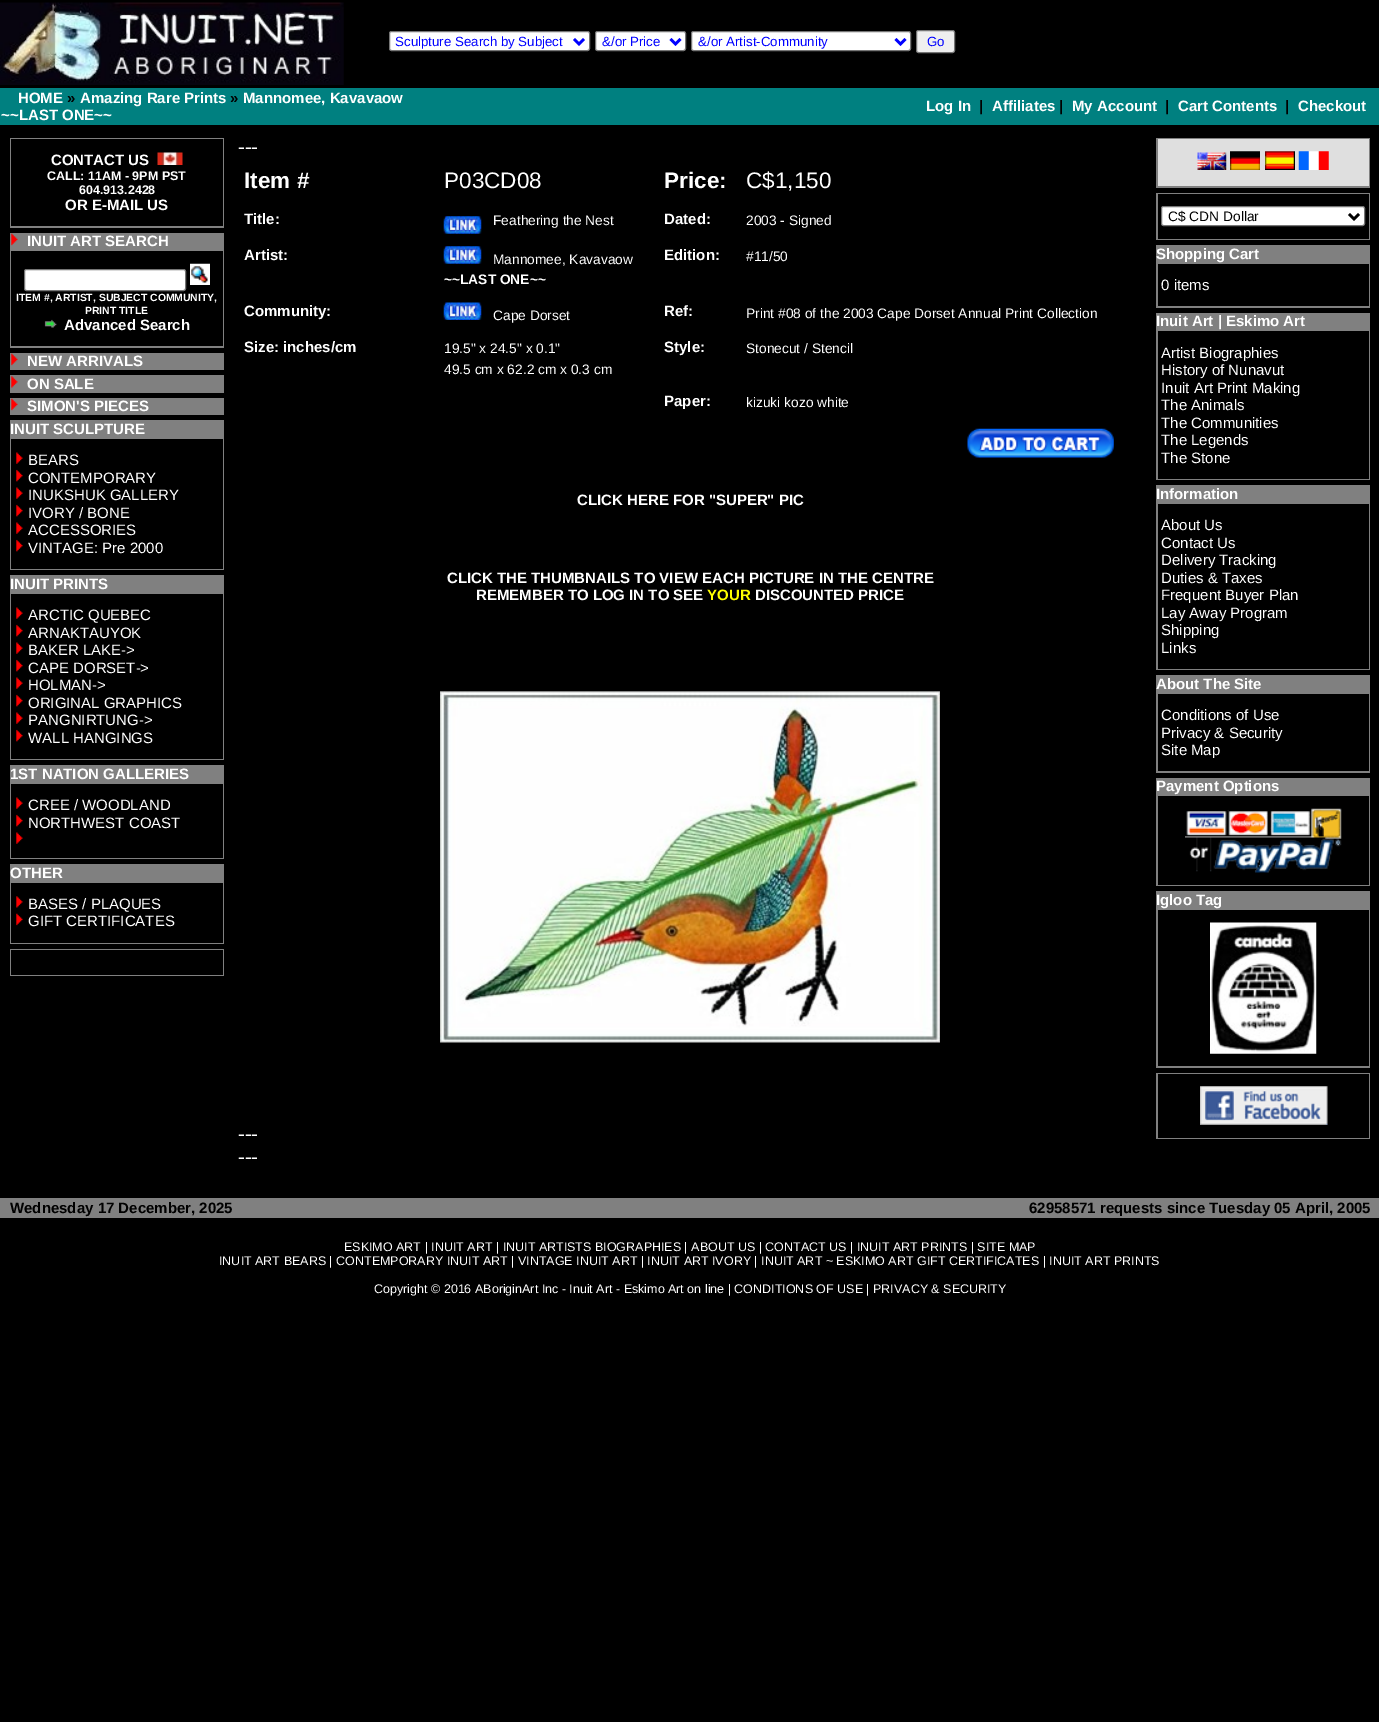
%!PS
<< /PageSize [1379 1722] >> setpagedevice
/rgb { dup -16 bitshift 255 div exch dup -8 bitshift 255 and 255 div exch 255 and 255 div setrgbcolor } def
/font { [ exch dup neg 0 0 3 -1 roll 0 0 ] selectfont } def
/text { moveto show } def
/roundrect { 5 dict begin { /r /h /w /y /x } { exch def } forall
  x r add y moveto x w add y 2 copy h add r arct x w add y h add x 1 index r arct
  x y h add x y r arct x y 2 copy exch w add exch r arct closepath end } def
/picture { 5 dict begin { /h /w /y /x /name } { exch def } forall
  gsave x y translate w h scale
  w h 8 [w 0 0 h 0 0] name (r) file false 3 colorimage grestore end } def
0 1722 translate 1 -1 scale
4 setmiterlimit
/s1 { /LiberationSans-Regular 13.3 font 16#0000FF rgb } def
/s2 { /LiberationSans-Bold 15 font 16#FFFFFF rgb } def
/s3 { /LiberationSans-Bold 15 font 16#000000 rgb } def
/s4 { /LiberationSans-Bold 12.5 font 16#FFFFFF rgb } def
/s5 { /LiberationSans-Bold 10.4 font 16#FFFFFF rgb } def
/s6 { /LiberationSans-Regular 15 font 16#FFFFFF rgb } def
/s7 { /LiberationSerif-Regular 20 font 16#FFFFFF rgb } def
/s8 { /LiberationSans-Bold 22.5 font 16#FFFFFF rgb } def
/s9 { /LiberationSans-Regular 22.5 font 16#FFFFFF rgb } def
/s10 { /LiberationSans-Regular 13.75 font 16#FFFFFF rgb } def
/s11 { /LiberationSans-Bold 13.75 font 16#FFFFFF rgb } def
/s12 { /LiberationSans-Bold 15 font 16#FFFF00 rgb } def
/s13 { /LiberationSans-Regular 13.75 font 16#000000 rgb } def
/s14 { /LiberationSans-Regular 12.5 font 16#FFFFFF rgb } def
16#000000 rgb
0 0 1379 1722 rectfill
(pic1.raw) 0 2 344 83 picture
16#FFFFFF rgb
389.5 31.5 200 19 2 roundrect gsave fill grestore
16#767676 rgb
stroke
16#0000FF rgb
2.5 setlinewidth
574 39 moveto 579 44 lineto 584 39 lineto stroke
s1
(Sculpture Search by Subject) 395 46 text
16#FFFFFF rgb
595.5 31.5 90 19 2 roundrect gsave fill grestore
16#767676 rgb
1 setlinewidth
stroke
16#0000FF rgb
2.5 setlinewidth
670.5 39 moveto 675.5 44 lineto 680.5 39 lineto stroke
(&/or Price) 602 46 text
16#FFFFFF rgb
691.5 31.5 219 19 2 roundrect gsave fill grestore
16#767676 rgb
1 setlinewidth
stroke
16#0000FF rgb
2.5 setlinewidth
895.5 39 moveto 900.5 44 lineto 905.5 39 lineto stroke
(&/or Artist-Community) 698 46 text
16#EFEFEF rgb
916.5 30.5 38 22 2 roundrect gsave fill grestore
16#767676 rgb
1 setlinewidth
stroke
s1
(Go) 927 46 text
16#008080 rgb
0 88 1379 37 rectfill
s2
(HOME) 18 103 text
s3
(») 67 103 text
s2
(Amazing Rare Prints) 80 103 text
s3
(») 230 103 text
s2
(Mannomee, Kavavaow) 243 103 text
(~~LAST ONE~~) 1 120 text
(Log In) 926 111 text
s3
(|) 979 111 text
s2
(Affiliates) 992 111 text
s3
(|) 1059 111 text
s2
(My Account) 1072 111 text
s3
(|) 1165 111 text
s2
(Cart Contents) 1178 111 text
s3
(|) 1285 111 text
s2
(Checkout) 1298 111 text
16#808080 rgb
10 138 214 90 rectfill
16#000000 rgb
11 139 212 87 rectfill
s2
(CONTACT US) 51 165 text
(pic2.raw) 157 152 26 13 picture
s4
(CALL: 11AM - 9PM PST) 47 180 text
(604.913.2428) 79 194 text
s2
(OR E-MAIL US) 65 210 text
16#808080 rgb
10 233 214 115 rectfill
(pic3.raw) 11 233 7 13 picture
s2
(INUIT ART SEARCH) 27 246 text
16#000000 rgb
11 251 212 95 rectfill
16#FFFFFF rgb
24.5 269.5 161 21 2 roundrect gsave fill grestore
16#767676 rgb
stroke
(pic4.raw) 190 263 20 22 picture
s5
(ITEM #, ARTIST, SUBJECT COMMUNITY,) 16 301 text
(PRINT TITLE) 85 314 text
(pic5.raw) 44 319 13 9 picture
s2
(Advanced Search) 64 330 text
16#808080 rgb
10 353 214 17 rectfill
(pic3.raw) 11 353 7 13 picture
s2
(NEW ARRIVALS) 27 366 text
16#808080 rgb
10 375 214 18 rectfill
(pic6.raw) 11 376 7 12 picture
s2
(ON SALE) 27 389 text
16#808080 rgb
10 398 214 17 rectfill
(pic3.raw) 11 398 7 13 picture
s2
(SIMON'S PIECES) 27 411 text
16#808080 rgb
10 420 214 150 rectfill
s2
(INUIT SCULPTURE) 10 434 text
16#000000 rgb
11 439 212 130 rectfill
(pic7.raw) 16 452 7 12 picture
s6
(BEARS) 28 465 text
(pic8.raw) 16 469 7 13 picture
(CONTEMPORARY) 28 483 text
(pic7.raw) 16 487 7 12 picture
(INUKSHUK GALLERY) 28 500 text
(pic8.raw) 16 504 7 13 picture
(IVORY / BONE) 28 518 text
(pic7.raw) 16 522 7 12 picture
(ACCESSORIES) 28 535 text
(pic8.raw) 16 539 7 13 picture
(VINTAGE: Pre 2000) 28 553 text
16#808080 rgb
10 575 214 185 rectfill
s2
(INUIT PRINTS) 10 589 text
16#000000 rgb
11 594 212 165 rectfill
(pic7.raw) 16 607 7 12 picture
s6
(ARCTIC QUEBEC) 28 620 text
(pic8.raw) 16 624 7 13 picture
(ARNAKTAUYOK) 28 638 text
(pic7.raw) 16 642 7 12 picture
(BAKER LAKE->) 28 655 text
(pic8.raw) 16 659 7 13 picture
(CAPE DORSET->) 28 673 text
(pic7.raw) 16 677 7 12 picture
(HOLMAN->) 28 690 text
(pic8.raw) 16 694 7 13 picture
(ORIGINAL GRAPHICS) 28 708 text
(pic7.raw) 16 712 7 12 picture
(PANGNIRTUNG->) 28 725 text
(pic8.raw) 16 729 7 13 picture
(WALL HANGINGS) 28 743 text
16#808080 rgb
10 765 214 94 rectfill
s2
(1ST NATION GALLERIES) 10 779 text
16#000000 rgb
11 784 212 74 rectfill
(pic7.raw) 16 797 7 12 picture
s6
(CREE / WOODLAND) 28 810 text
(pic8.raw) 16 814 7 13 picture
(NORTHWEST COAST) 28 828 text
(pic7.raw) 16 832 7 12 picture
16#808080 rgb
10 864 214 80 rectfill
s2
(OTHER) 10 878 text
16#000000 rgb
11 883 212 60 rectfill
(pic9.raw) 16 896 7 12 picture
s6
(BASES / PLAQUES) 28 909 text
(pic10.raw) 16 913 7 13 picture
(GIFT CERTIFICATES) 28 926 text
16#808080 rgb
10 949 214 27 rectfill
16#000000 rgb
11 950 212 25 rectfill
s7
(---) 238 153 text
s8
(Item #) 244 188 text
s9
(P03CD08) 444 188 text
s8
(Price:) 664 188 text
s9
(C$1,150) 746 188 text
s2
(Title:) 244 224 text
(pic11.raw) 443 216 39 18 picture
s10
(Feathering the Nest) 493 225 text
s2
(Dated:) 664 224 text
s10
(2003 - Signed) 746 225 text
s2
(Artist:) 244 260 text
(pic11.raw) 443 246 39 18 picture
s10
(Mannomee, Kavavaow) 493 264 text
s11
(~~LAST ONE~~) 444 284 text
s2
(Edition:) 664 260 text
s10
(#11/50) 746 261 text
s2
(Community:) 244 316 text
(pic12.raw) 443 302 39 18 picture
s10
(Cape Dorset) 493 320 text
s2
(Ref:) 664 316 text
s10
(Print #08 of the 2003 Cape Dorset Annual Print Collection) 746 318 text
s2
(Size: inches/cm) 244 352 text
s10
(19.5" x 24.5" x 0.1") 444 353 text
(49.5 cm x 62.2 cm x 0.3 cm) 444 374 text
s2
(Style:) 664 352 text
s10
(Stonecut / Stencil) 746 353 text
s2
(Paper:) 664 406 text
s10
(kizuki kozo white) 746 407 text
(pic13.raw) 967 428 147 30 picture
s2
(CLICK HERE FOR "SUPER" PIC) 577 505 text
(CLICK THE THUMBNAILS TO VIEW EACH PICTURE IN THE CENTRE) 447 583 text
(REMEMBER TO LOG IN TO SEE) 476 600 text
s12
(YOUR) 707 600 text
s2
(DISCOUNTED PRICE) 755 600 text
(pic14.raw) 440 691 500 352 picture
s7
(---) 238 1140 text
(---) 238 1163 text
16#808080 rgb
1156 138 214 50 rectfill
16#DFDFDF rgb
1158 139 211 47 rectfill
(pic15.raw) 1197 152 30 18 picture
(pic16.raw) 1230 151 30 19 picture
(pic17.raw) 1265 151 30 19 picture
(pic18.raw) 1298 151 31 19 picture
16#808080 rgb
1156 193 214 47 rectfill
16#000000 rgb
1158 194 211 45 rectfill
16#FFFFFF rgb
1161.5 206.5 203 19 2 roundrect gsave fill grestore
16#767676 rgb
stroke
16#000000 rgb
2.5 setlinewidth
1349 214 moveto 1354 219 lineto 1359 214 lineto stroke
s13
(C$ CDN Dollar) 1168 221 text
16#808080 rgb
1156 245 214 63 rectfill
s2
(Shopping Cart) 1156 259 text
16#000000 rgb
1158 264 211 42 rectfill
s6
(0 items) 1161 290 text
16#808080 rgb
1156 313 214 167 rectfill
s2
(Inuit Art | Eskimo Art) 1156 326 text
16#000000 rgb
1158 331 211 148 rectfill
s6
(Artist Biographies) 1161 358 text
(History of Nunavut) 1161 375 text
(Inuit Art Print Making) 1161 393 text
(The Animals) 1161 410 text
(The Communities) 1161 428 text
(The Legends) 1161 445 text
(The Stone) 1161 463 text
16#808080 rgb
1156 485 214 185 rectfill
s2
(Information) 1156 499 text
16#000000 rgb
1158 504 211 165 rectfill
s6
(About Us) 1161 530 text
(Contact Us) 1161 548 text
(Delivery Tracking) 1161 565 text
(Duties & Taxes) 1161 583 text
(Frequent Buyer Plan) 1161 600 text
(Lay Away Program) 1161 618 text
(Shipping) 1161 635 text
(Links) 1161 653 text
16#808080 rgb
1156 675 214 98 rectfill
s2
(About The Site) 1156 689 text
16#000000 rgb
1158 694 211 77 rectfill
s6
(Conditions of Use) 1161 720 text
(Privacy & Security) 1161 738 text
(Site Map) 1161 755 text
16#808080 rgb
1156 778 214 108 rectfill
s2
(Payment Options) 1156 791 text
16#000000 rgb
1158 796 211 89 rectfill
(pic19.raw) 1185 808 157 65 picture
16#808080 rgb
1156 891 214 177 rectfill
s2
(Igloo Tag) 1156 905 text
16#000000 rgb
1158 910 211 156 rectfill
(pic20.raw) 1210 922 107 132 picture
16#808080 rgb
1156 1073 214 66 rectfill
16#000000 rgb
1158 1074 211 64 rectfill
(pic21.raw) 1200 1086 128 39 picture
16#808080 rgb
0 1198 1379 20 rectfill
s3
(Wednesday 17 December, 2025) 10 1213 text
(62958571 requests since Tuesday 05 April, 2005) 1029 1213 text
s14
(ESKIMO ART | INUIT ART | INUIT ARTISTS BIOGRAPHIES | ABOUT US | CONTACT US | INUIT ART PRINTS | SITE MAP) 344 1251 text
(INUIT ART BEARS | CONTEMPORARY INUIT ART | VINTAGE INUIT ART | INUIT ART IVORY | INUIT ART ~ ESKIMO ART GIFT CERTIFICATES | INUIT ART PRINTS) 219 1265 text
(Copyright © 2016 ABoriginArt Inc - Inuit Art - Eskimo Art on line | CONDITIONS OF USE | PRIVACY & SECURITY) 374 1293 text
showpage
